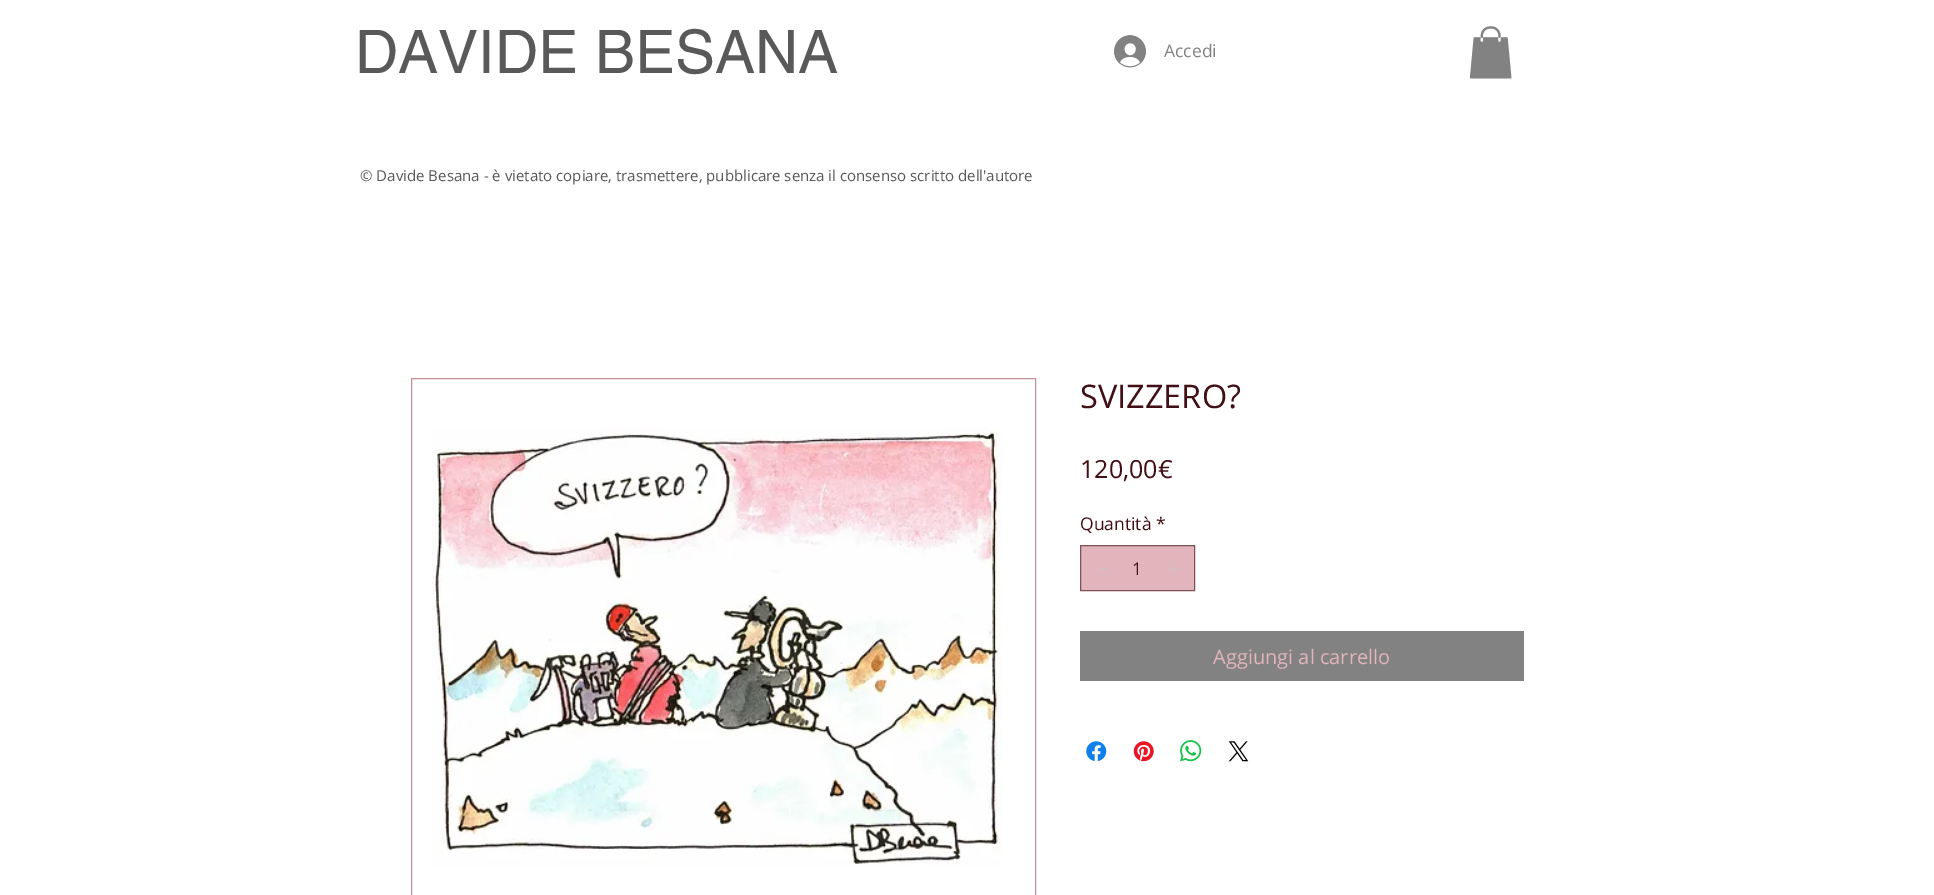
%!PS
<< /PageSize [1934 895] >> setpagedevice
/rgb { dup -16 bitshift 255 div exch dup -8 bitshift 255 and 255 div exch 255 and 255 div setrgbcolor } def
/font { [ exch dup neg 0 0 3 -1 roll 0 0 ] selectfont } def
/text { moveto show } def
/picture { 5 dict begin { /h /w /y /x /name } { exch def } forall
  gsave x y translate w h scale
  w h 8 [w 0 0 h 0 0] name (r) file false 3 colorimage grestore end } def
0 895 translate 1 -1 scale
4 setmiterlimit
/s1 { /helvetica-Regular 60 font 16#595959 rgb } def
/s2 { /OpenSans-Regular 17.5 font 16#828282 rgb } def
/s3 { /OpenSans-Regular 15 font 16#595959 rgb } def
/s4 { /OpenSans-Regular 32.5 font 16#430F16 rgb } def
/s5 { /OpenSans-Regular 25 font 16#430F16 rgb } def
/s6 { /OpenSans-Regular 17.5 font 16#430F16 rgb } def
/s7 { /OpenSans-Regular 20 font 16#E1B5BB rgb } def
16#FFFFFF rgb
0 0 1934 895 rectfill
s1
(DAVIDE BESANA) 355 73 text
(pic1.raw) 1114 35 32 33 picture
s2
(Accedi) 1164 57 text
(pic2.raw) 1469 26 43 53 picture
s3
(© Davide Besana - è vietato copiare, trasmettere, pubblicare senza il consenso scritto dell'autore) 360 181 text
16#C39197 rgb
411.5 378.5 624 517 rectstroke
(pic3.raw) 432 428 571 438 picture
s4
(SVIZZERO?) 1080 408 text
s5
(120,00€) 1080 478 text
s6
(Quantità) 1080 530 text
(*) 1156 530 text
16#E1B5BB rgb
1080.5 545.5 moveto 1194.5 545.5 lineto 1194.5 590.5 lineto 1080.5 590.5 lineto closepath gsave fill grestore
16#825158 rgb
stroke
16#D4BEC1 rgb
1094 568 17 1 rectfill
s6
(1) 1132 575 text
(pic4.raw) 1165 560 17 17 picture
16#828282 rgb
1080 631 444 50 rectfill
s7
(Aggiungi al carrello) 1213 664 text
(pic5.raw) 1086 741 21 21 picture
(pic6.raw) 1133 741 21 21 picture
(pic7.raw) 1180 740 22 22 picture
(pic8.raw) 1228 741 21 21 picture
showpage
